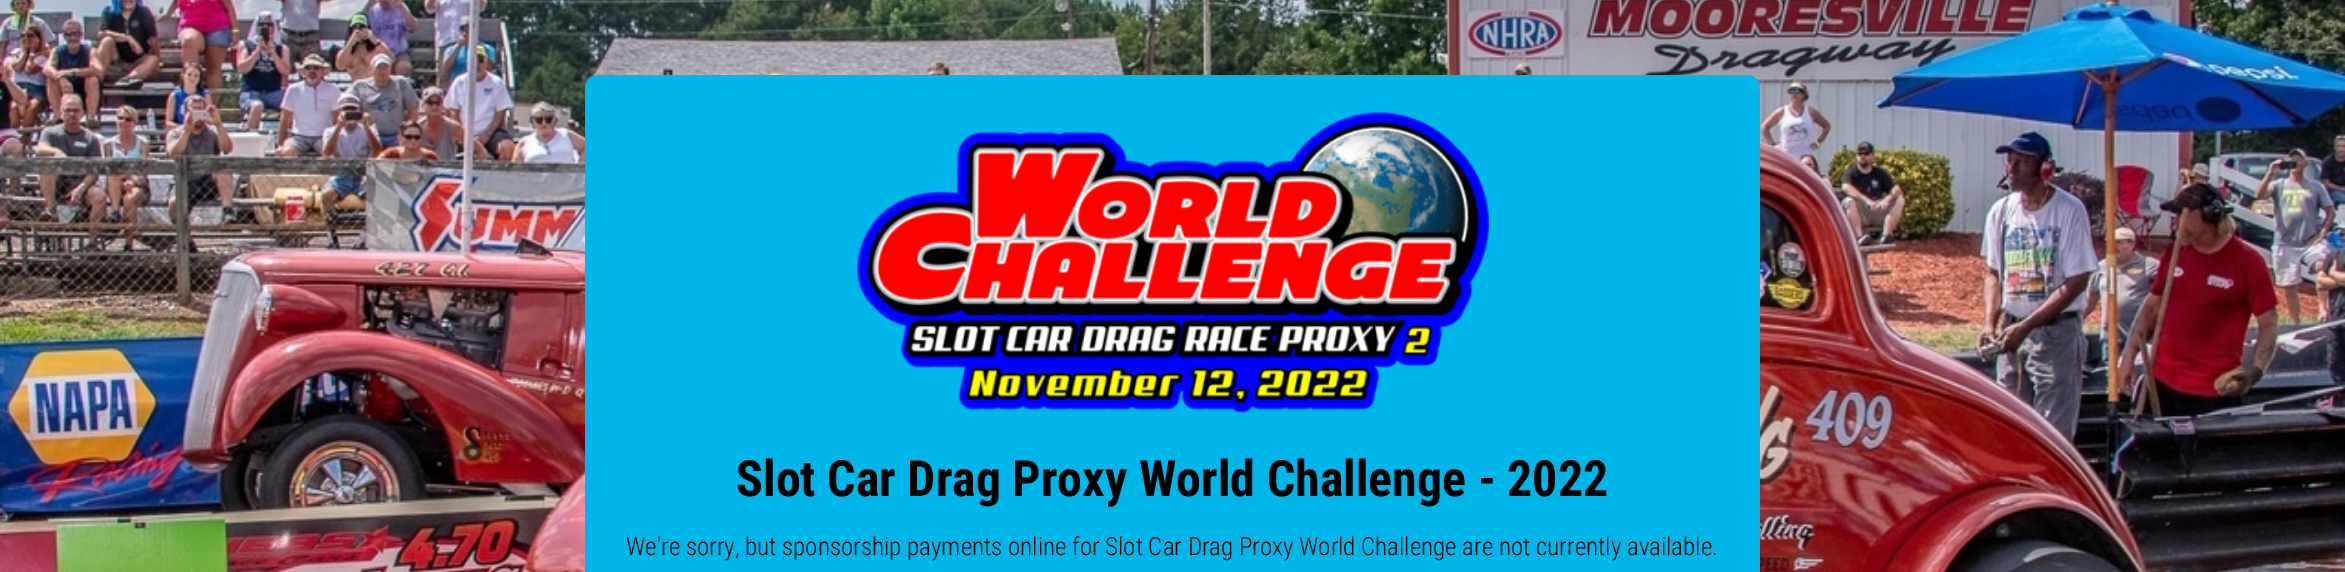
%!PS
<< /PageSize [2345 572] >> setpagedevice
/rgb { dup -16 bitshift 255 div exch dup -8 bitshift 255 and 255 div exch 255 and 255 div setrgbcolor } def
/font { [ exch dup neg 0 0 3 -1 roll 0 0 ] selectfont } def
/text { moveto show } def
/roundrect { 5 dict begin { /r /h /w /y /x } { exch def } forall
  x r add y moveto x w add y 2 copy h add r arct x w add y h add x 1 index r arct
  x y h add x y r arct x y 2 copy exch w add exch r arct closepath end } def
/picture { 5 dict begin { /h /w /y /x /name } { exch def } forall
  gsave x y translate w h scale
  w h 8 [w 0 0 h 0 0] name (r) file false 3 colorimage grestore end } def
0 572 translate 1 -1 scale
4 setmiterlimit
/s1 { /RobotoCondensed-Bold 50 font 16#000000 rgb } def
/s2 { /RobotoCondensed-Light 25 font 16#000000 rgb } def
16#FFFFFF rgb
0 0 2345 572 rectfill
(pic1.raw) 0 0 2345 572 picture
16#00B6E8 rgb
585 75 1175 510 13 roundrect fill
(pic2.raw) 857 112 632 301 picture
s1
(Slot Car Drag Proxy World Challenge - 2022) 736 496 text
s2
(We're sorry, but sponsorship payments online for Slot Car Drag Proxy World Challenge are not currently available.) 626 555 text
showpage
